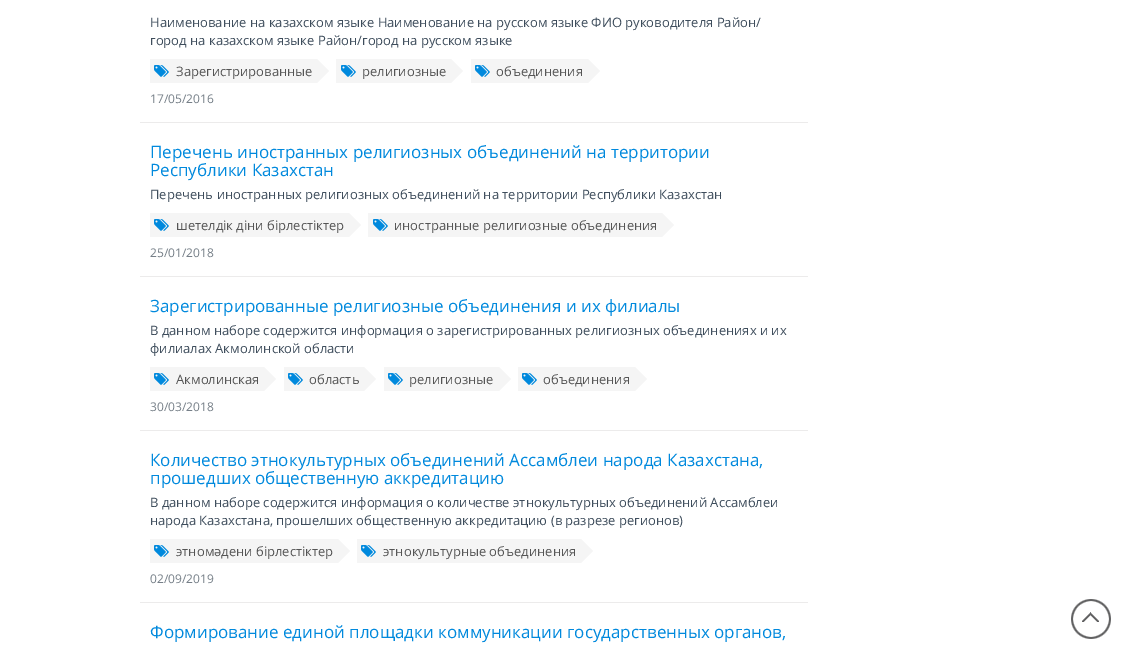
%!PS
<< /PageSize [1121 649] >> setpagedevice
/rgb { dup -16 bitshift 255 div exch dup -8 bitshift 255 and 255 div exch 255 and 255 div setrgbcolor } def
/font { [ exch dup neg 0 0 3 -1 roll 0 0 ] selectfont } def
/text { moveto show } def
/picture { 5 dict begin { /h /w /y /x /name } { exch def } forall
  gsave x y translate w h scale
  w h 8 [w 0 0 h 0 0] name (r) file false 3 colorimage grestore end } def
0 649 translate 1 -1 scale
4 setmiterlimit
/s1 { /OpenSans-Regular 13 font 16#3E4D5C rgb } def
/s2 { /OpenSans-Regular 13 font 16#555555 rgb } def
/s3 { /OpenSans-Regular 12 font 16#767F88 rgb } def
/s4 { /OpenSans-Regular 17 font 16#0089DD rgb } def
16#FFFFFF rgb
0 0 1121 649 rectfill
16#ECEBEB rgb
140 122 668 1 rectfill
s1
(Наименование на казахском языке Наименование на русском языке ФИО руководителя Район/) 150 27 text
(город на казахском языке Район/город на русском языке) 150 45 text
16#F5F5F5 rgb
150 59 167 24 rectfill
(pic1.raw) 154 65 15 12 picture
s2
(Зарегистрированные) 176 76 text
16#F5F5F5 rgb
317 83 moveto 317 59 lineto 329 71 lineto closepath fill
336 59 115 24 rectfill
(pic1.raw) 341 65 15 12 picture
s2
(религиозные) 362 76 text
16#F5F5F5 rgb
451 83 moveto 451 59 lineto 463 71 lineto closepath fill
471 59 117 24 rectfill
(pic1.raw) 475 65 15 12 picture
s2
(объединения) 496 76 text
16#F5F5F5 rgb
588 83 moveto 588 59 lineto 600 71 lineto closepath fill
s3
(17/05/2016) 150 103 text
16#ECEBEB rgb
140 276 668 1 rectfill
s4
(Перечень иностранных религиозных объединений на территории) 150 158 text
(Республики Казахстан) 150 176 text
s1
(Перечень иностранных религиозных объединений на территории Республики Казахстан) 150 199 text
16#F5F5F5 rgb
150 213 199 24 rectfill
(pic1.raw) 154 219 15 12 picture
s2
(шетелдік діни бірлестіктер) 176 230 text
16#F5F5F5 rgb
349 237 moveto 349 213 lineto 361 225 lineto closepath fill
368 213 294 24 rectfill
(pic1.raw) 373 219 15 12 picture
s2
(иностранные религиозные объединения) 394 230 text
16#F5F5F5 rgb
662 237 moveto 662 213 lineto 674 225 lineto closepath fill
s3
(25/01/2018) 150 257 text
16#ECEBEB rgb
140 430 668 1 rectfill
s4
(Зарегистрированные религиозные объединения и их филиалы) 150 312 text
s1
(В данном наборе содержится информация о зарегистрированных религиозных объединениях и их) 150 335 text
(филиалах Акмолинской области) 150 353 text
16#F5F5F5 rgb
150 367 114 24 rectfill
(pic1.raw) 154 373 15 12 picture
s2
(Акмолинская) 176 384 text
16#F5F5F5 rgb
264 391 moveto 264 367 lineto 276 379 lineto closepath fill
284 367 80 24 rectfill
(pic1.raw) 288 373 15 12 picture
s2
(область) 309 384 text
16#F5F5F5 rgb
364 391 moveto 364 367 lineto 376 379 lineto closepath fill
384 367 115 24 rectfill
(pic1.raw) 388 373 15 12 picture
s2
(религиозные) 409 384 text
16#F5F5F5 rgb
499 391 moveto 499 367 lineto 511 379 lineto closepath fill
518 367 117 24 rectfill
(pic1.raw) 522 373 15 12 picture
s2
(объединения) 543 384 text
16#F5F5F5 rgb
635 391 moveto 635 367 lineto 647 379 lineto closepath fill
s3
(30/03/2018) 150 411 text
16#ECEBEB rgb
140 602 668 1 rectfill
s4
(Количество этнокультурных объединений Ассамблеи народа Казахстана,) 150 466 text
(прошедших общественную аккредитацию) 150 484 text
s1
(В данном наборе содержится информация о количестве этнокультурных объединений Ассамблеи) 150 507 text
(народа Казахстана, прошелших общественную аккредитацию \(в разрезе регионов\)) 150 525 text
16#F5F5F5 rgb
150 539 188 24 rectfill
(pic1.raw) 154 545 15 12 picture
s2
(этномәдени бірлестіктер) 176 556 text
16#F5F5F5 rgb
338 563 moveto 338 539 lineto 350 551 lineto closepath fill
357 539 224 24 rectfill
(pic1.raw) 361 545 15 12 picture
s2
(этнокультурные объединения) 383 556 text
16#F5F5F5 rgb
581 563 moveto 581 539 lineto 593 551 lineto closepath fill
s3
(02/09/2019) 150 583 text
s4
(Формирование единой площадки коммуникации государственных органов,) 150 638 text
(pic2.raw) 1071 599 40 40 picture
showpage
